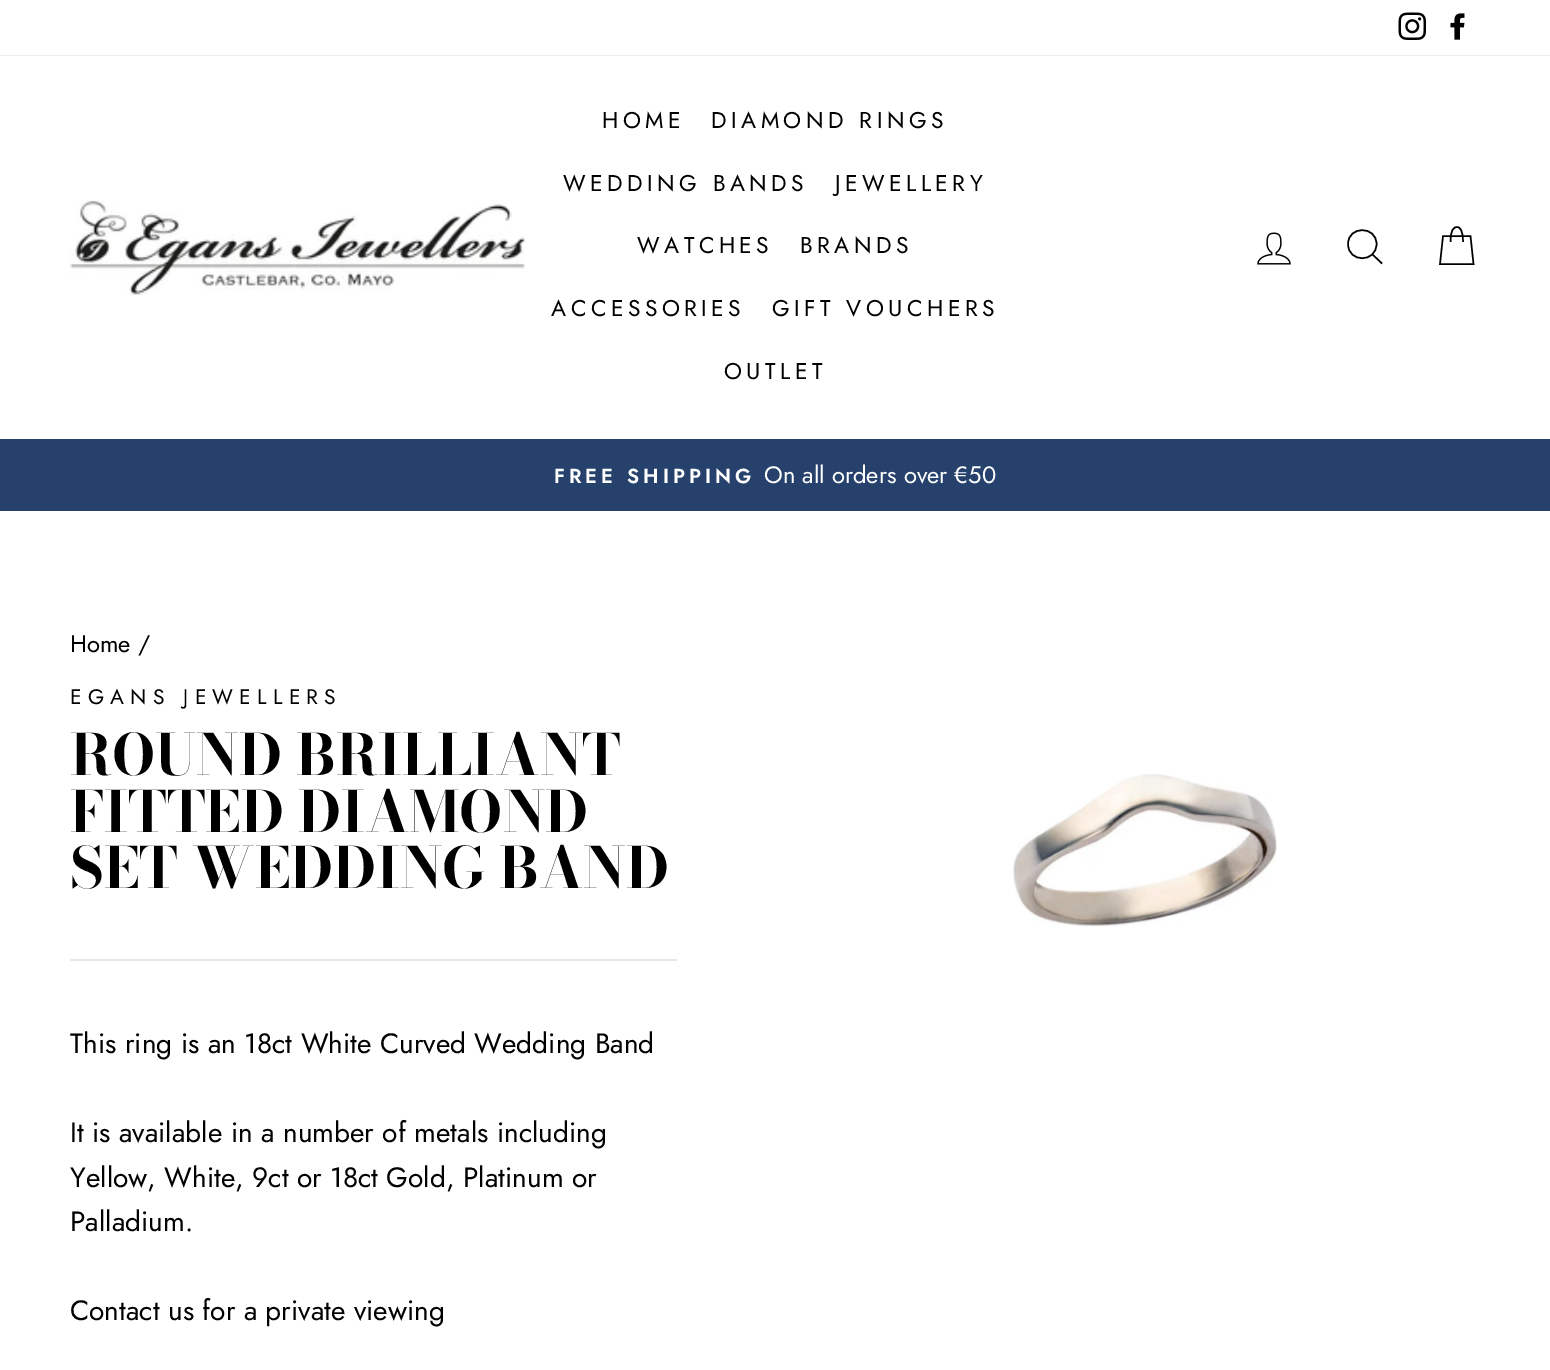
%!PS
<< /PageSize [1550 1370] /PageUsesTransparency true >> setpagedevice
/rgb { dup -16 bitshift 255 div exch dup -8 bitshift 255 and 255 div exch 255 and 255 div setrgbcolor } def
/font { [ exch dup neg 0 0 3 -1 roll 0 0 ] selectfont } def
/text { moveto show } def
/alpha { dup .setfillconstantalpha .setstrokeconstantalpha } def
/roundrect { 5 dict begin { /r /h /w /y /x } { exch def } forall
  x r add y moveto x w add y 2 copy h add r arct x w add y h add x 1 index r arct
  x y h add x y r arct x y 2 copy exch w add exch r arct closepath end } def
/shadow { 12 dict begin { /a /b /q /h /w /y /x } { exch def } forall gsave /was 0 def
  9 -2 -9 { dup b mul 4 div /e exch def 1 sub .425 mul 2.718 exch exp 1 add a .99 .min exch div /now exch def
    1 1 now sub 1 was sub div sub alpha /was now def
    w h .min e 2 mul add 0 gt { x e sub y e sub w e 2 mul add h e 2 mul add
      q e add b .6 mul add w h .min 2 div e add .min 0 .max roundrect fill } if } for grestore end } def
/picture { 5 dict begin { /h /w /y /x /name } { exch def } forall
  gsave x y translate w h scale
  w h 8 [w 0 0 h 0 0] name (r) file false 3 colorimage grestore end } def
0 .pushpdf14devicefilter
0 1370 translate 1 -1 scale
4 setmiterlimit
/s1 { /Jost-Regular 23.75 font 16#FFFFFF rgb } def
/s2 { /Jost-Regular 23.75 font 16#000000 rgb } def
/s3 { /BodoniModa-Bold 56.5 font 16#000000 rgb } def
/s4 { /Jost-Regular 28 font 16#000000 rgb } def
16#FFFFFF rgb
0 0 1550 1370 rectfill
(pic1.raw) 1398 12 28 28 picture
(pic2.raw) 1450 13 15 27 picture
gsave
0 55 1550 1 rectclip
16#000000 rgb
0 56 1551 383 0 1 0.2 shadow
grestore
(pic3.raw) 70 200 455 96 picture
/Jost-Regular 22.75 font
16#000000 rgb
602 128 moveto 4.5 0 (HOME) ashow
711 128 moveto 4.5 0 (DIAMOND RINGS) ashow
563 191 moveto 4.5 0 (WEDDING BANDS) ashow
835 191 moveto 4.5 0 (JEWELLERY) ashow
637 253 moveto 4.5 0 (WATCHES) ashow
800 253 moveto 4.5 0 (BRANDS) ashow
551 316 moveto 4.5 0 (ACCESSORIES) ashow
772 316 moveto 4.5 0 (GIFT VOUCHERS) ashow
724 379 moveto 4.5 0 (OUTLET) ashow
(pic4.raw) 1257 232 34 33 picture
1.5 setlinewidth
1376.5 244 moveto 1376.5 263 1348 263 1348 244 curveto 1348 225.5 1376.5 225.5 1376.5 244 curveto closepath 1382 263.5 moveto 1372.5 254.5 lineto stroke
1450.5 242 moveto 1450.5 230 1453.5 227 1457 227 curveto 1460 227 1463 230 1463 242 curveto 1443 236 moveto 1470.5 236 lineto 1473.5 264 lineto 1440 264 lineto closepath stroke
16#26426C rgb
0 439 1550 72 rectfill
/Jost-SemiBold 20.25 font
16#FFFFFF rgb
554 483 moveto 4 0 (FREE SHIPPING) ashow
s1
(On all orders over €50) 764 483 text
s2
(Home /) 70 652 text
/Jost-Regular 21 font
70 704 moveto 6.25 0 (EGANS JEWELLERS) ashow
s3
(ROUND BRILLIANT) 70 775 text
(FITTED DIAMOND) 70 832 text
(SET WEDDING BAND) 70 888 text
16#E8E8E1 rgb
70 959 607 2 rectfill
s4
(This ring is an 18ct White Curved Wedding Band) 70 1053 text
(It is available in a number of metals including) 70 1142 text
(Yellow, White, 9ct or 18ct Gold, Platinum or) 70 1187 text
(Palladium.) 70 1231 text
(Contact us for a private viewing) 70 1320 text
(pic5.raw) 1013 774 264 153 picture
.poppdf14devicefilter showpage
